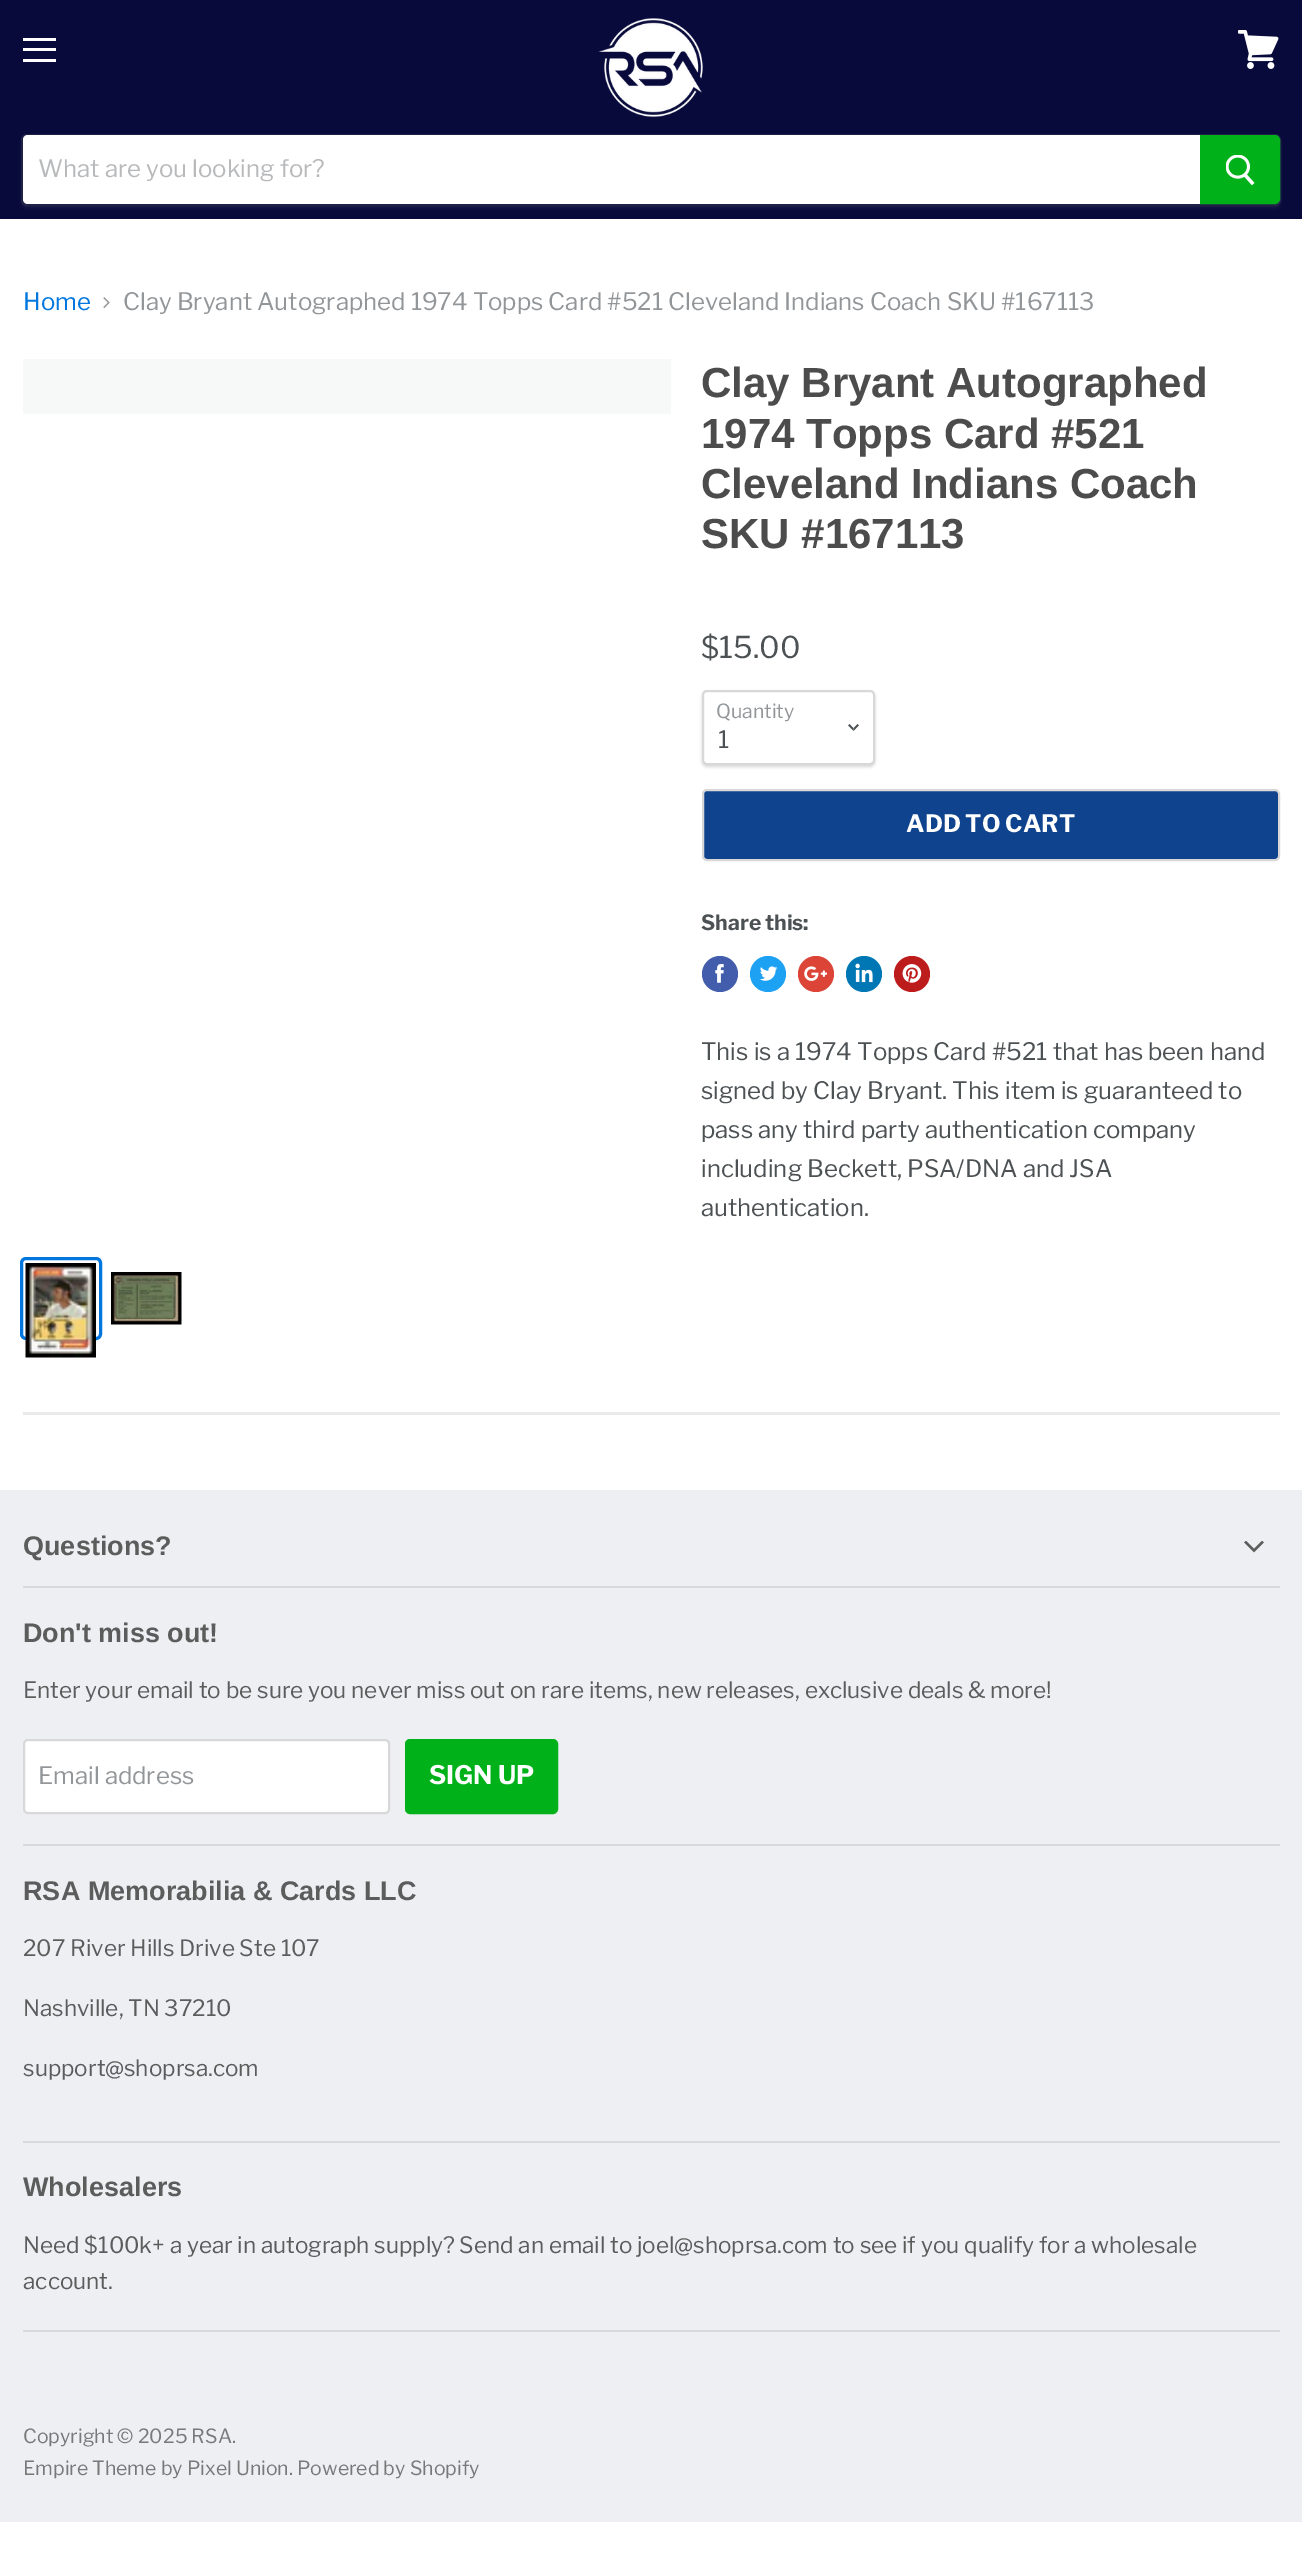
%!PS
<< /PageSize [1302 2569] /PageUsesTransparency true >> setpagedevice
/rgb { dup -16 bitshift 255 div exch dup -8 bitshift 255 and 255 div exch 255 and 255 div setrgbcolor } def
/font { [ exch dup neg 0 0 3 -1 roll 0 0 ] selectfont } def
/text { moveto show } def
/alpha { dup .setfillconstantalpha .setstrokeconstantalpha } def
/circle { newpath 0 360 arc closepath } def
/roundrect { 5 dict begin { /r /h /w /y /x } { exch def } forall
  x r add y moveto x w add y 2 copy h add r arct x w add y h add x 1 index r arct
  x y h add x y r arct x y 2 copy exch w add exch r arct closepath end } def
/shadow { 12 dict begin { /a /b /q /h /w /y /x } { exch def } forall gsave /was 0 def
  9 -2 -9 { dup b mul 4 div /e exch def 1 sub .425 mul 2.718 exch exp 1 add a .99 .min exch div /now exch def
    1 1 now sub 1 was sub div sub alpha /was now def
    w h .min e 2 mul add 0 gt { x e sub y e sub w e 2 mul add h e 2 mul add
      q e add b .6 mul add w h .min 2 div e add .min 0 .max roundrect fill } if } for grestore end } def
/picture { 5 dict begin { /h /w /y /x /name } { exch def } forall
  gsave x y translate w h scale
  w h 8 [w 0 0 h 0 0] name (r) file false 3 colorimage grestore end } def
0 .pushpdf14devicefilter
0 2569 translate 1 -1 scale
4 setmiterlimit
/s1 { /LibreFranklin-Regular 24 font 16#B7B9BB rgb } def
/s2 { /LibreFranklin-Regular 24 font 16#0076DE rgb } def
/s3 { /LibreFranklin-Regular 24 font 16#939698 rgb } def
/s4 { /Arimo-Bold 42 font 16#4C4C4C rgb } def
/s5 { /LibreFranklin-Regular 30 font 16#4C5154 rgb } def
/s6 { /LibreFranklin-Regular 19.5 font 16#939698 rgb } def
/s7 { /LibreFranklin-Regular 24 font 16#4C5154 rgb } def
/s8 { /LibreFranklin-Bold 24 font 16#FFFFFF rgb } def
/s9 { /LibreFranklin-Bold 21 font 16#4C5154 rgb } def
/s10 { /Arimo-Bold 27 font 16#5C5C5C rgb } def
/s11 { /LibreFranklin-Regular 22.5 font 16#5C5C5C rgb } def
/s12 { /LibreFranklin-Bold 25.5 font 16#FFFFFF rgb } def
/s13 { /LibreFranklin-Regular 19.5 font 16#79797A rgb } def
16#FFFFFF rgb
0 0 1302 2569 rectfill
16#080A3B rgb
0 0 1302 219 rectfill
16#FFFFFF rgb
23 38 33 3 rectfill
23 48 33 3 rectfill
23 59 33 3 rectfill
(pic1.raw) 1238 30 41 39 picture
(pic2.raw) 598 18 105 100 picture
gsave
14 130 moveto 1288 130 lineto 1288 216 lineto 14 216 lineto closepath 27 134 moveto 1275 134 lineto 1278.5 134 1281 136.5 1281 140 curveto 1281 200 lineto 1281 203.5 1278.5 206 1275 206 curveto 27 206 lineto 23.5 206 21 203.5 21 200 curveto 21 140 lineto 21 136.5 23.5 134 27 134 curveto closepath eoclip newpath
16#7F7F7F rgb
21 137 1260 72 6 2 0.11 shadow
grestore
0.2 alpha
16#7F7F7F rgb
2 setlinewidth
22 135 1258 70 5 roundrect stroke
1 alpha
16#FFFFFF rgb
28 135 moveto 1200 135 lineto 1200 204 lineto 28 204 lineto 25 204 23 202 23 199 curveto 23 140 lineto 23 137 25 135 28 135 curveto closepath fill
s1
(What are you looking for?) 38 177 text
16#00B11A rgb
1201 136 moveto 1275 136 lineto 1277 136 1279 138 1279 140 curveto 1279 199 lineto 1279 201 1277 203 1275 203 curveto 1201 203 lineto closepath gsave fill grestore
stroke
(pic3.raw) 1226 155 29 31 picture
s2
(Home) 23 310 text
(pic4.raw) 103 297 7 11 picture
s3
(Clay Bryant Autographed 1974 Topps Card #521 Cleveland Indians Coach SKU #167113) 123 310 text
16#F7F8F8 rgb
23 359 648 55 rectfill
16#0076DE rgb
3 setlinewidth
21.5 1258.5 79 80 4.5 roundrect stroke
(pic5.raw) 25 1263 71 95 picture
(pic6.raw) 111 1272 71 53 picture
s4
(Clay Bryant Autographed) 701 397 text
(1974 Topps Card #521) 701 448 text
(Cleveland Indians Coach) 701 498 text
(SKU #167113) 701 548 text
s5
($15.00) 701 658 text
16#000000 rgb
702 692 173 75 5 1.5 0.15 shadow
16#FFFFFF rgb
703 691 171 73 4 roundrect gsave fill grestore
16#D8D8D8 rgb
2 setlinewidth
stroke
s6
(Quantity) 716 718 text
(pic7.raw) 848 724 11 7 picture
s7
(1) 718 748 text
16#0F438E rgb
703 790 576 70 4 roundrect gsave fill grestore
16#D8D8D8 rgb
stroke
s8
(ADD TO CART) 906 832 text
s9
(Share this:) 701 930 text
16#425DAB rgb
720 974 18 circle fill
(pic8.raw) 715 964 9 19 picture
16#1DA1F2 rgb
768 974 18 circle fill
(pic9.raw) 759 966 19 15 picture
16#DB4437 rgb
816 974 18 circle fill
(pic10.raw) 804 966 23 15 picture
16#0077B5 rgb
864 974 18 circle fill
(pic11.raw) 855 963 18 20 picture
16#BD1C1C rgb
912 974 18 circle fill
(pic12.raw) 902 964 20 19 picture
s7
(This is a 1974 Topps Card #521 that has been hand) 701 1060 text
(signed by Clay Bryant. This item is guaranteed to) 701 1099 text
(pass any third party authentication company) 701 1138 text
(including Beckett, PSA/DNA and JSA) 701 1177 text
(authentication.) 701 1216 text
0.16 alpha
16#7F7F7F rgb
23 1412 1257 3 rectfill
1 alpha
16#EDEFF3 rgb
0 1490 1302 1032 rectfill
16#D7D9DC rgb
23 1586 1257 2 rectfill
s10
(Questions?) 23 1555 text
(pic13.raw) 1244 1541 20 12 picture
16#D7D9DC rgb
23 1844 1257 2 rectfill
s10
(Don't miss out!) 23 1642 text
s11
(Enter your email to be sure you never miss out on rare items, new releases, exclusive deals & more!) 23 1698 text
16#FFFFFF rgb
24 1740 365 73 4 roundrect gsave fill grestore
16#D8D8D8 rgb
stroke
s3
(Email address) 38 1784 text
16#00B11A rgb
406 1740 151 73 4 roundrect gsave fill grestore
stroke
s12
(SIGN UP) 429 1784 text
16#D7D9DC rgb
23 2141 1257 2 rectfill
s10
(RSA Memorabilia & Cards LLC) 23 1900 text
s11
(207 River Hills Drive Ste 107) 23 1956 text
(Nashville, TN 37210) 23 2016 text
(support@shoprsa.com) 23 2076 text
16#D7D9DC rgb
23 2330 1257 2 rectfill
s10
(Wholesalers) 23 2196 text
s11
(Need $100k+ a year in autograph supply? Send an email to joel@shoprsa.com to see if you qualify for a wholesale) 23 2253 text
(account.) 23 2289 text
s13
(Copyright © 2025 RSA.) 23 2443 text
(Empire Theme by Pixel Union. Powered by Shopify) 23 2475 text
.poppdf14devicefilter showpage
